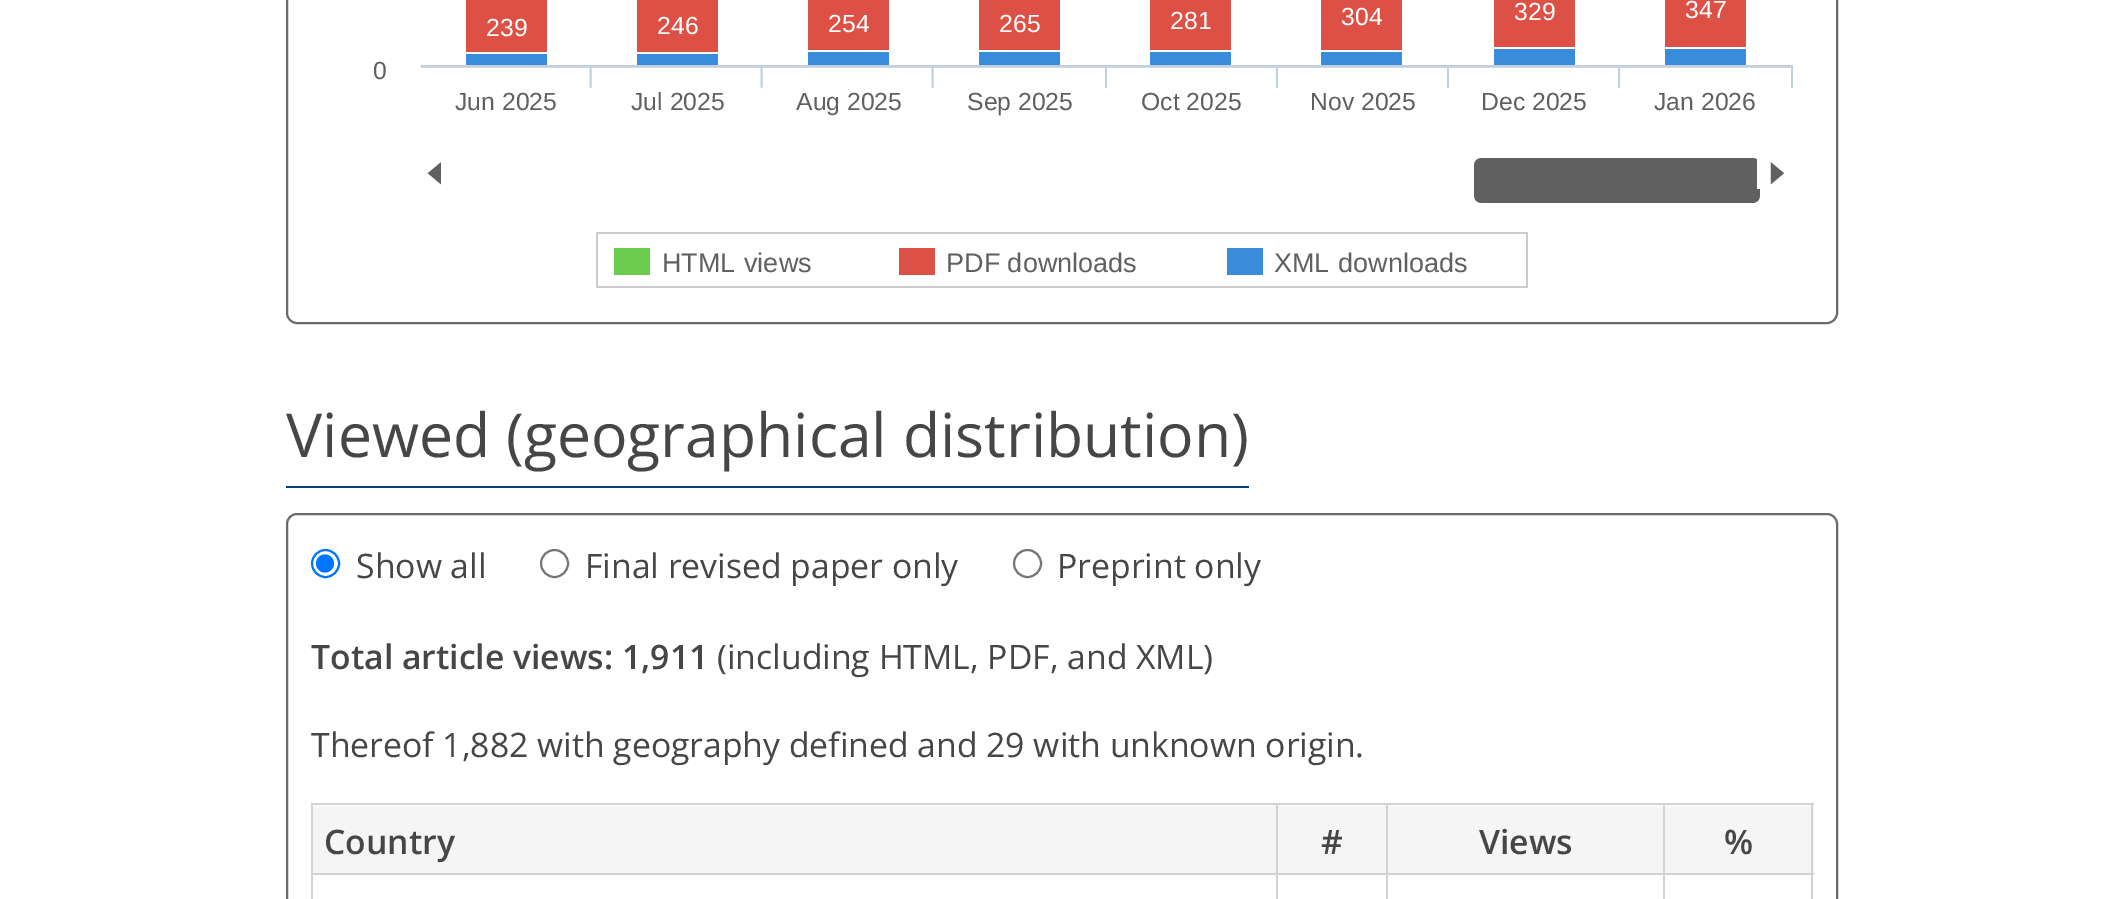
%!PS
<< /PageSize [2122 899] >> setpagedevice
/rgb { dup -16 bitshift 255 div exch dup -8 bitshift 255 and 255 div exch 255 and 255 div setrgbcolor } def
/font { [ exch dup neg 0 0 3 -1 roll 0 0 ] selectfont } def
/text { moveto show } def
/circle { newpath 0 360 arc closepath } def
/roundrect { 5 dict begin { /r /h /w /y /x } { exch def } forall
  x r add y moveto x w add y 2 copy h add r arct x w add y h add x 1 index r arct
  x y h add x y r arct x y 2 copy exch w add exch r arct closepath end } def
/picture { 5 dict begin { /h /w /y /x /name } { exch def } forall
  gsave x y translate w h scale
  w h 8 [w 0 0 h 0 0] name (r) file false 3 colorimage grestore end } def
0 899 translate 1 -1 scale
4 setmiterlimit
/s1 { /LiberationSans-Regular 24.75 font 16#FFFFFF rgb } def
/s2 { /LiberationSans-Regular 24.75 font 16#606060 rgb } def
/s3 { /LiberationSans-Regular 27 font 16#606060 rgb } def
/s4 { /OpenSans-Regular 60.75 font 16#464646 rgb } def
/s5 { /OpenSans-Regular 33.75 font 16#464646 rgb } def
/s6 { /OpenSans-SemiBold 33.75 font 16#464646 rgb } def
16#FFFFFF rgb
0 0 2122 899 rectfill
16#6A6A6A rgb
2 setlinewidth
287 -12 1550 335 10 roundrect stroke
(pic1.raw) 420 0 1373 288 picture
s1
(239) 486 36 text
(246) 657 34 text
(254) 828 32 text
(265) 999 32 text
(281) 1170 29 text
(304) 1341 25 text
(329) 1514 20 text
(347) 1685 18 text
s2
(0) 373 79 text
(Jun 2025) 455 110 text
(Jul 2025) 631 110 text
(Aug 2025) 796 110 text
(Sep 2025) 967 110 text
(Oct 2025) 1141 110 text
(Nov 2025) 1310 110 text
(Dec 2025) 1481 110 text
(Jan 2026) 1654 110 text
/LiberationSans-Regular 27 font
662 272 moveto 1 0 32 (HTML views) widthshow
(PDF downloads) 946 272 text
1274 272 moveto 1 0 32 (XML downloads) widthshow
16#004279 rgb
286 486 963 2 rectfill
s4
(Viewed \(geographical distribution\)) 286 457 text
16#6A6A6A rgb
287 514 1550 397 10 roundrect stroke
16#0075FF rgb
325.5 563.5 13.5 circle stroke
325 563.5 9 circle fill
s5
(Show all) 356 578 text
16#767676 rgb
554.5 563.5 13.5 circle stroke
s5
(Final revised paper only) 585 578 text
16#767676 rgb
1027.5 563.5 13.5 circle stroke
s5
(Preprint only) 1057 578 text
s6
(Total article views: 1,911) 311 669 text
s5
(\(including HTML, PDF, and XML\)) 717 669 text
(Thereof 1,882 with geography defined and 29 with unknown origin.) 311 757 text
16#F5F5F5 rgb
313 806 963 67 rectfill
16#D2D2D2 rgb
1663 803 151 2 rectfill
1663 873 151 2 rectfill
1663 873 2 26 rectfill
1386 873 279 2 rectfill
1663 803 2 72 rectfill
1386 803 279 2 rectfill
1386 873 2 26 rectfill
1276 873 112 2 rectfill
1386 803 2 72 rectfill
1276 803 112 2 rectfill
1276 873 2 26 rectfill
311 873 967 2 rectfill
1276 803 2 72 rectfill
311 803 967 2 rectfill
311 873 2 26 rectfill
311 803 2 72 rectfill
s6
(Country) 324 854 text
16#F5F5F5 rgb
1278 806 108 67 rectfill
s6
(#) 1321 854 text
16#F5F5F5 rgb
1388 806 275 67 rectfill
s6
(Views) 1479 854 text
16#F5F5F5 rgb
1665 806 149 67 rectfill
16#D2D2D2 rgb
1811 873 2 26 rectfill
1811 803 2 72 rectfill
s6
(%) 1724 854 text
showpage
